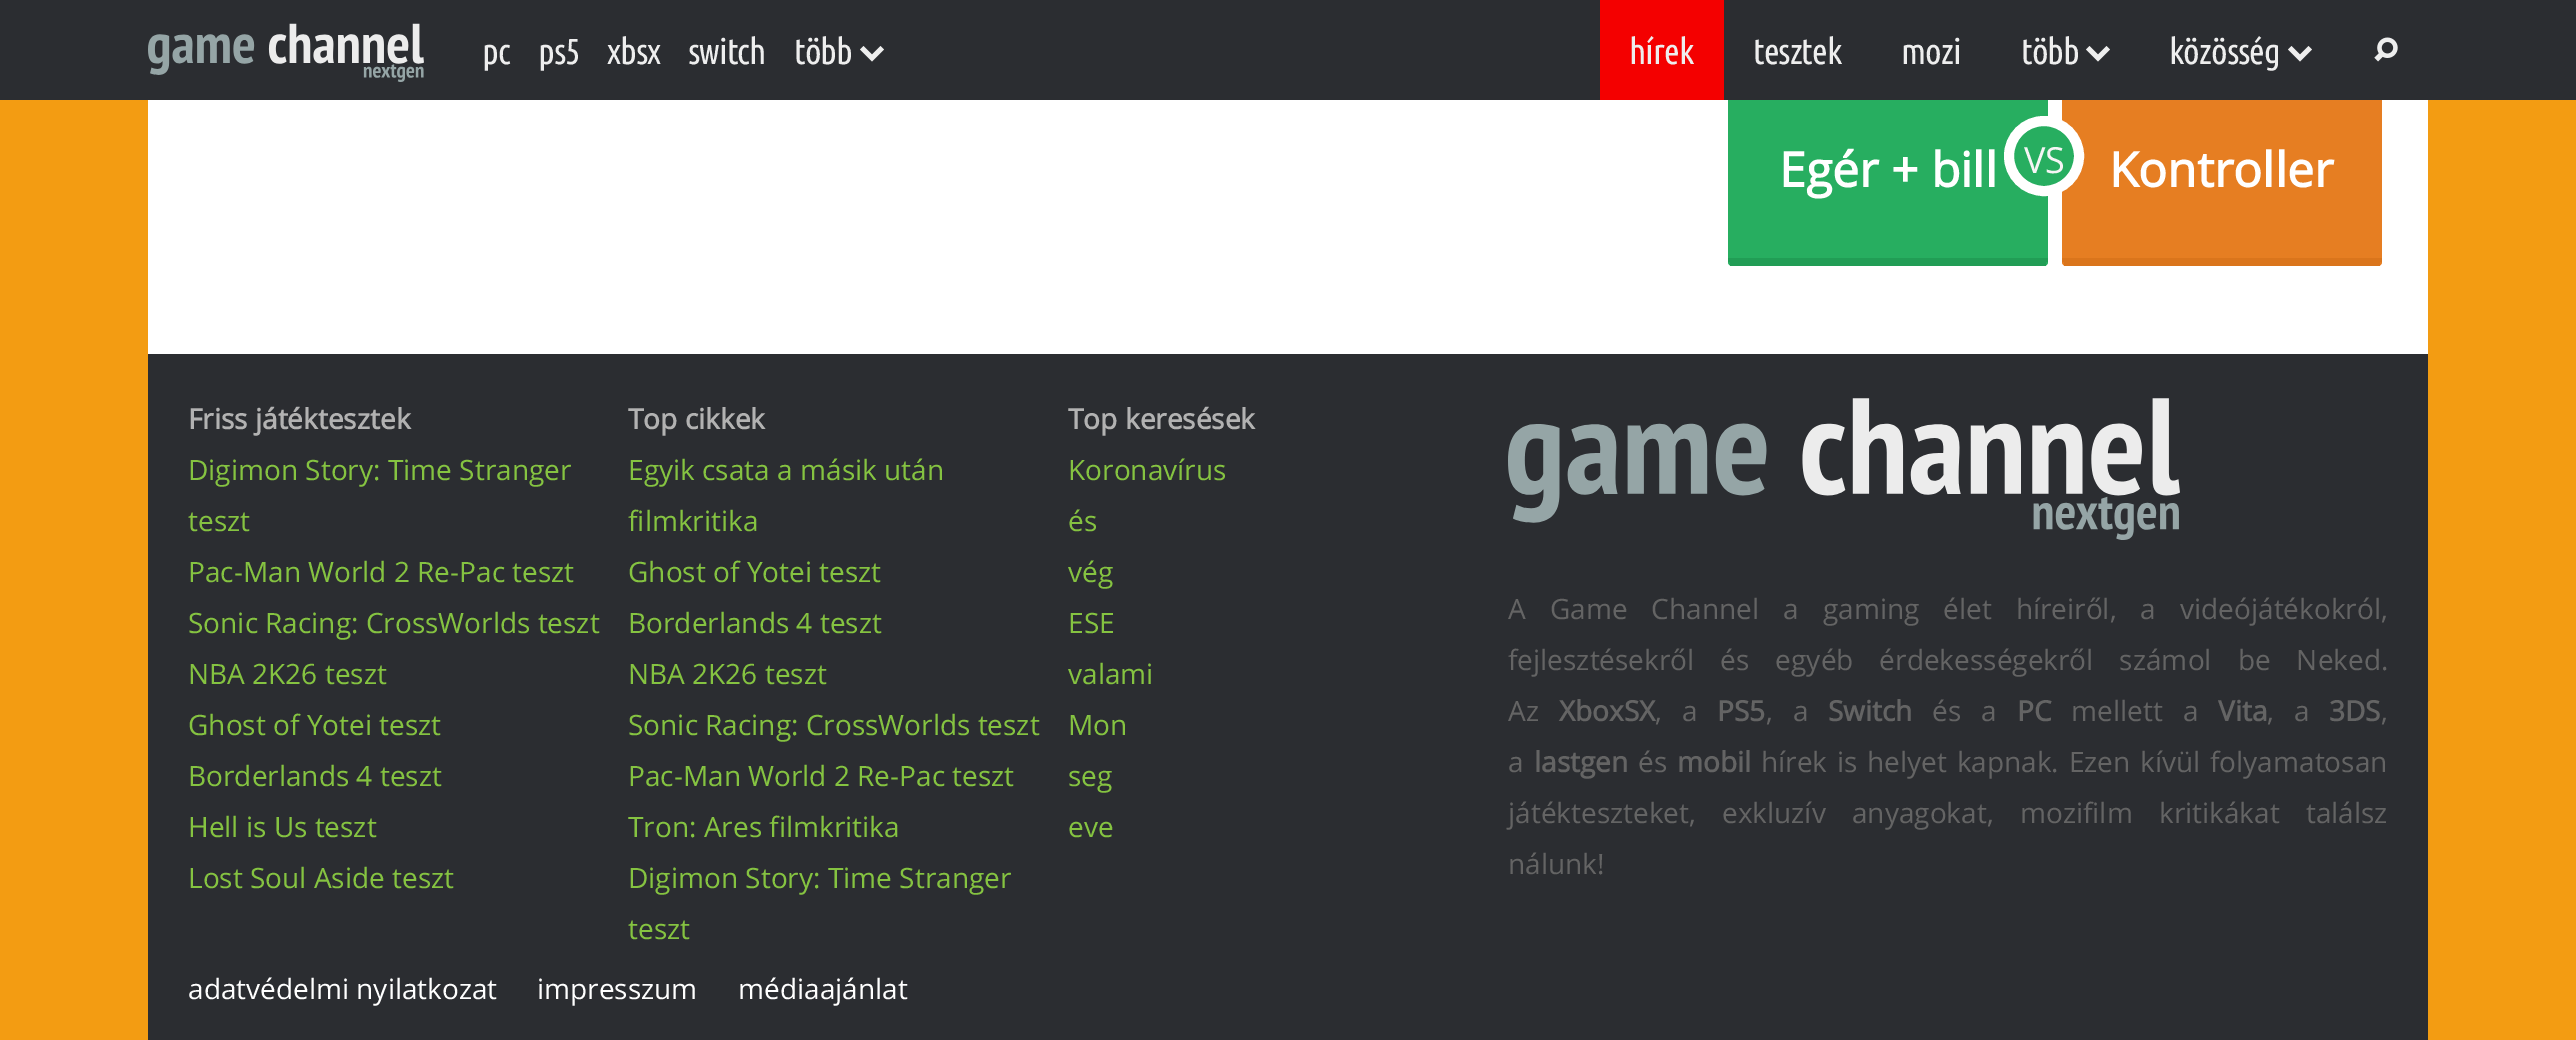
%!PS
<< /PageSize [2576 1040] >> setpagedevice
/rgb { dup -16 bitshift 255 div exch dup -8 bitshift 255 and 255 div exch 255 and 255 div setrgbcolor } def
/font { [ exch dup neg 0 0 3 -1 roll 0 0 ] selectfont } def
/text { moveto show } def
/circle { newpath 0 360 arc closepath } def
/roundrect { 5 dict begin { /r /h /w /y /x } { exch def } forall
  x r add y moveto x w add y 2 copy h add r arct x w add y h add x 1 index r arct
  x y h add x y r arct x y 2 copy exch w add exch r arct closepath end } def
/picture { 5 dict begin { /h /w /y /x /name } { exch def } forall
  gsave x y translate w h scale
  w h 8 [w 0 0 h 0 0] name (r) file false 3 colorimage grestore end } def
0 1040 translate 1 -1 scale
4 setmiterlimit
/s1 { /OpenSans-Bold 48 font 16#FFFFFF rgb } def
/s2 { /OpenSans-Regular 36 font 16#F5F5F5 rgb } def
/s3 { /OpenSans-Bold 28 font 16#B2B2B2 rgb } def
/s4 { /OpenSans-Regular 28 font 16#85C341 rgb } def
/s5 { /OpenSans-Regular 28 font 16#646464 rgb } def
/s6 { /OpenSans-Bold 28 font 16#646464 rgb } def
/s7 { /OpenSans-Regular 28 font 16#FFFFFF rgb } def
16#F39C12 rgb
0 0 2576 1040 rectfill
16#FFFFFF rgb
148 100 2280 254 rectfill
16#27AE60 rgb
1728 66 320 200 4 roundrect fill
16#E67E22 rgb
2062 66 320 200 4 roundrect fill
16#2B2D31 rgb
0 0 2576 100 rectfill
(pic1.raw) 148 23 276 59 picture
/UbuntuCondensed-Regular 36 font
16#EEEEEE rgb
482 64 moveto -1 0 (pc) ashow
538 64 moveto -1 0 (ps5) ashow
607 64 moveto -1 0 (xbsx) ashow
688 64 moveto -1 0 (switch) ashow
794 64 moveto -1 0 (több) ashow
872 61.5 moveto 884 49.5 lineto 880.5 46 lineto 872 54.5 lineto 863.5 46 lineto 860 49.5 lineto closepath fill
16#F40000 rgb
1600 0 124 100 rectfill
16#EEEEEE rgb
1629 64 moveto -1 0 (hírek) ashow
1753 64 moveto -1 0 (tesztek) ashow
1901 64 moveto -1 0 (mozi) ashow
2021 64 moveto -1 0 (több) ashow
2098 61.5 moveto 2110 49.5 lineto 2106.5 46 lineto 2098 54.5 lineto 2089.5 46 lineto 2086 49.5 lineto closepath fill
2169 64 moveto -1 0 (közösség) ashow
2300 61.5 moveto 2312 49.5 lineto 2308.5 46 lineto 2300 54.5 lineto 2291.5 46 lineto 2288 49.5 lineto closepath fill
(pic2.raw) 2374 37 24 25 picture
16#219D55 rgb
1728 258 320 4 rectfill
1730 262 316 4 rectfill
s1
(Egér + bill) 1779 187 text
16#27AE60 rgb
2044 156 35 circle gsave fill grestore
16#FFFFFF rgb
10 setlinewidth
stroke
s2
(VS) 2024 173 text
16#DA751C rgb
2062 258 320 4 rectfill
2064 262 316 4 rectfill
s1
(Kontroller) 2109 187 text
16#2B2D31 rgb
148 354 2280 686 rectfill
s3
(Friss játéktesztek) 188 429 text
s4
(Digimon Story: Time Stranger) 188 480 text
(teszt) 188 531 text
(Pac-Man World 2 Re-Pac teszt) 188 582 text
(Sonic Racing: CrossWorlds teszt) 188 633 text
(NBA 2K26 teszt) 188 684 text
(Ghost of Yotei teszt) 188 735 text
(Borderlands 4 teszt) 188 786 text
(Hell is Us teszt) 188 837 text
(Lost Soul Aside teszt) 188 888 text
s3
(Top cikkek) 628 429 text
s4
(Egyik csata a másik után) 628 480 text
(filmkritika) 628 531 text
(Ghost of Yotei teszt) 628 582 text
(Borderlands 4 teszt) 628 633 text
(NBA 2K26 teszt) 628 684 text
(Sonic Racing: CrossWorlds teszt) 628 735 text
(Pac-Man World 2 Re-Pac teszt) 628 786 text
(Tron: Ares filmkritika) 628 837 text
(Digimon Story: Time Stranger) 628 888 text
(teszt) 628 939 text
s3
(Top keresések) 1068 429 text
s4
(Koronavírus) 1068 480 text
(és) 1068 531 text
(vég) 1068 582 text
(ESE) 1068 633 text
(valami) 1068 684 text
(Mon) 1068 735 text
(seg) 1068 786 text
(eve) 1068 837 text
(pic3.raw) 1508 398 672 142 picture
16#646464 rgb
1508 619 moveto 16.75 0 32 (A Game Channel a gaming élet híreiről, a videójátékokról,) widthshow
1508 670 moveto 18.75 0 32 (fejlesztésekről és egyéb érdekességekről számol be Neked.) widthshow
(Az) 1508 721 text
s6
(XboxSX) 1559 721 text
/OpenSans-Regular 28 font
1655 721 moveto 13 0 32 (, a) widthshow
s6
(PS5) 1717 721 text
/OpenSans-Regular 28 font
1766 721 moveto 13 0 32 (, a) widthshow
s6
(Switch) 1828 721 text
/OpenSans-Regular 28 font
1932 721 moveto 13 0 32 (és a) widthshow
s6
(PC) 2017 721 text
/OpenSans-Regular 28 font
2071 721 moveto 13 0 32 (mellett a) widthshow
s6
(Vita) 2218 721 text
/OpenSans-Regular 28 font
2267 721 moveto 13 0 32 (, a) widthshow
s6
(3DS) 2329 721 text
s5
(,) 2381 721 text
(a) 1508 772 text
s6
(lastgen) 1534 772 text
s5
(és) 1638 772 text
s6
(mobil) 1677 772 text
/OpenSans-Regular 28 font
1761 772 moveto 2.5 0 32 (hírek is helyet kapnak. Ezen kívül folyamatosan) widthshow
1508 823 moveto 19 0 32 (játékteszteket, exkluzív anyagokat, mozifilm kritikákat találsz) widthshow
(nálunk!) 1508 874 text
s7
(adatvédelmi nyilatkozat) 188 999 text
(impresszum) 537 999 text
(médiaajánlat) 738 999 text
showpage
